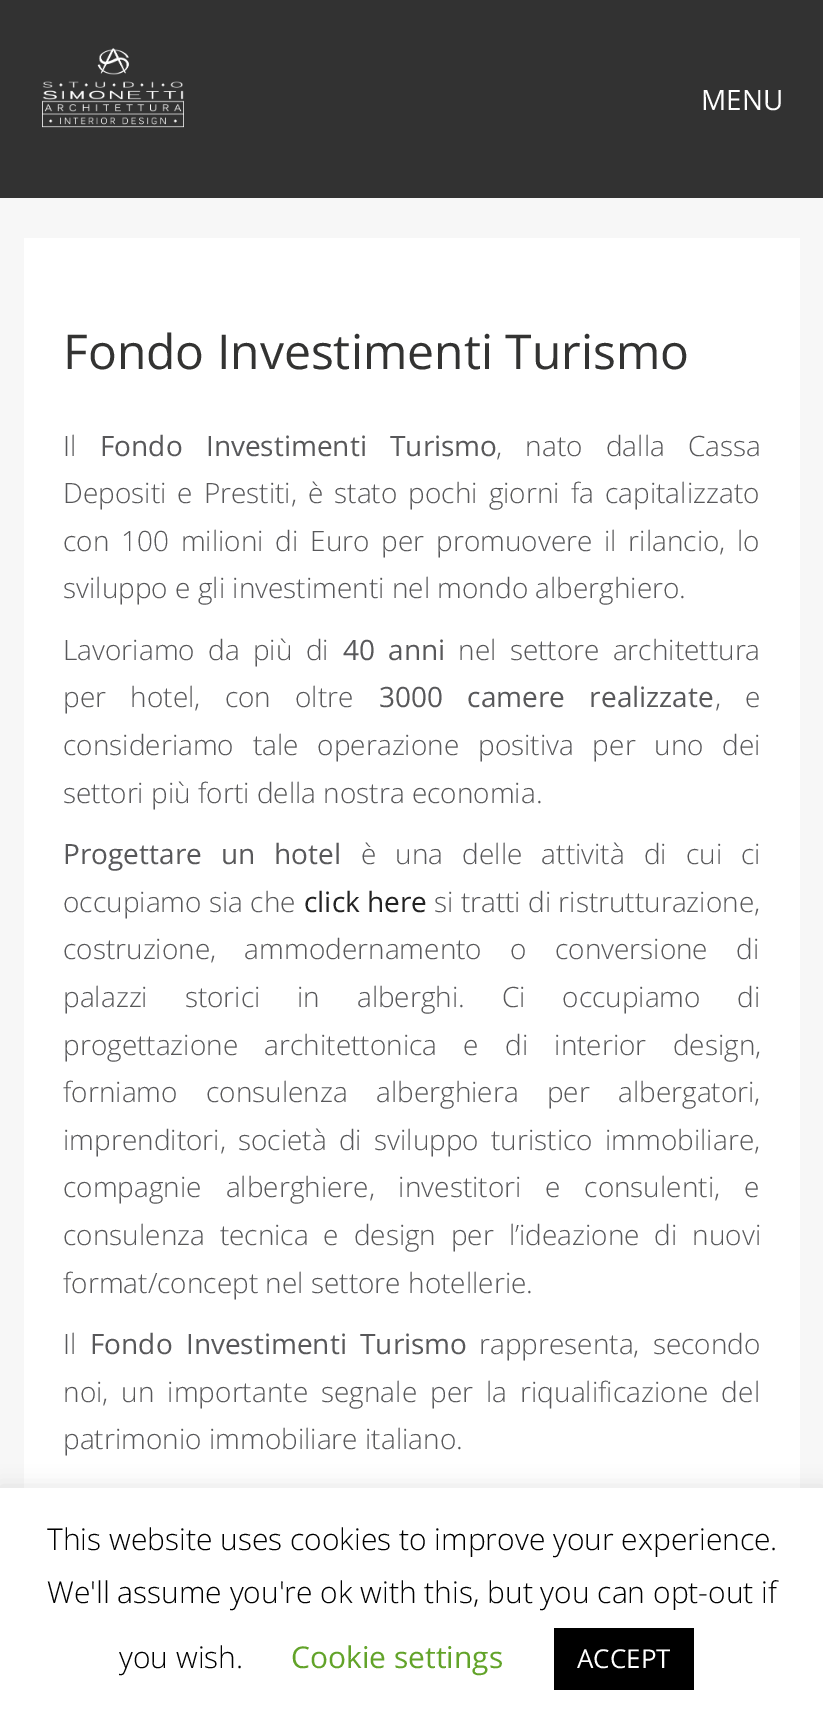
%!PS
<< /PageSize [823 1723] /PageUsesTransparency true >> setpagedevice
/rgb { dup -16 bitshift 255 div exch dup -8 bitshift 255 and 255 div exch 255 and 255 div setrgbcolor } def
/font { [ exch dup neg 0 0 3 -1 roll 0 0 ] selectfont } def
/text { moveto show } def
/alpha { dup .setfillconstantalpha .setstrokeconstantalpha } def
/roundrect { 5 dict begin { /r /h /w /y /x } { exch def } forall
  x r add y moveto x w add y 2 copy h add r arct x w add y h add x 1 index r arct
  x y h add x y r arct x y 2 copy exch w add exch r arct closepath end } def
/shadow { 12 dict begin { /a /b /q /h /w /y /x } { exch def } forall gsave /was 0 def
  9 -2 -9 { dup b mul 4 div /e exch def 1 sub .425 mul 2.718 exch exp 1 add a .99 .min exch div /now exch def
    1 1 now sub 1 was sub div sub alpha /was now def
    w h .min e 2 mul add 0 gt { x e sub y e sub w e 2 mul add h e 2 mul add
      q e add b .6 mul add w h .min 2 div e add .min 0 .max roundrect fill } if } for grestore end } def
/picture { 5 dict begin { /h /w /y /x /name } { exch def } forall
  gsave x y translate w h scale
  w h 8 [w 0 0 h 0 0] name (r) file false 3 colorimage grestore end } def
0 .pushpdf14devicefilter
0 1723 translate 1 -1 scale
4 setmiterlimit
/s1 { /OpenSans-Regular 28 font 16#FFFFFF rgb } def
/s2 { /OpenSans-Regular 48 font 16#333332 rgb } def
/s3 { /OpenSans-Light 28 font 16#58585A rgb } def
/s4 { /OpenSans-Regular 28 font 16#222222 rgb } def
/s5 { /OpenSans-Light 30 font 16#000000 rgb } def
/s6 { /OpenSans-Regular 30 font 16#62A329 rgb } def
/s7 { /OpenSans-Regular 26 font 16#FFFFFF rgb } def
16#F7F7F7 rgb
0 0 823 1723 rectfill
16#323232 rgb
0 0 823 198 rectfill
(pic1.raw) 42 48 142 80 picture
s1
(MENU) 701 110 text
24 238 776 1250 rectfill
s2
(Fondo Investimenti Turismo) 63 369 text
s3
(Il) 63 456 text
/OpenSans-Regular 28 font
100 456 moveto 16 0 32 (Fondo Investimenti Turismo) widthshow
/OpenSans-Light 28 font
496 456 moveto 16 0 32 (, nato dalla Cassa) widthshow
63 503 moveto 3.75 0 32 (Depositi e Prestiti, è stato pochi giorni fa capitalizzato) widthshow
63 551 moveto 4.5 0 32 (con 100 milioni di Euro per promuovere il rilancio, lo) widthshow
(sviluppo e gli investimenti nel mondo alberghiero.) 63 598 text
63 660 moveto 6 0 32 (Lavoriamo da più di) widthshow
/OpenSans-Regular 28 font
343 660 moveto 6 0 32 (40 anni) widthshow
/OpenSans-Light 28 font
458 660 moveto 6 0 32 (nel settore architettura) widthshow
63 707 moveto 17 0 32 (per hotel, con oltre) widthshow
/OpenSans-Regular 28 font
379 707 moveto 17 0 32 (3000 camere realizzate) widthshow
/OpenSans-Light 28 font
715 707 moveto 17 0 32 (, e) widthshow
63 755 moveto 11.5 0 32 (consideriamo tale operazione positiva per uno dei) widthshow
(settori più forti della nostra economia.) 63 803 text
/OpenSans-Regular 28 font
63 864 moveto 11.75 0 32 (Progettare un hotel) widthshow
/OpenSans-Light 28 font
361 864 moveto 11.75 0 32 (è una delle attività di cui ci) widthshow
(occupiamo sia che) 63 912 text
s4
(click here) 304 912 text
s3
(si tratti di ristrutturazione,) 434 912 text
63 959 moveto 21 0 32 (costruzione, ammodernamento o conversione di) widthshow
63 1007 moveto 29.5 0 32 (palazzi storici in alberghi. Ci occupiamo di) widthshow
63 1055 moveto 19 0 32 (progettazione architettonica e di interior design,) widthshow
63 1102 moveto 21 0 32 (forniamo consulenza alberghiera per albergatori,) widthshow
63 1150 moveto 5 0 32 (imprenditori, società di sviluppo turistico immobiliare,) widthshow
63 1197 moveto 16.5 0 32 (compagnie alberghiere, investitori e consulenti, e) widthshow
63 1245 moveto 7.5 0 32 (consulenza tecnica e design per l’ideazione di nuovi) widthshow
(format/concept nel settore hotellerie.) 63 1293 text
(Il) 63 1354 text
/OpenSans-Regular 28 font
90 1354 moveto 6 0 32 (Fondo Investimenti Turismo) widthshow
/OpenSans-Light 28 font
479 1354 moveto 6 0 32 (rappresenta, secondo) widthshow
63 1402 moveto 5.75 0 32 (noi, un importante segnale per la riqualificazione del) widthshow
(patrimonio immobiliare italiano.) 63 1449 text
16#ACABAB rgb
0 1486 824 236 0 10 0.3 shadow
16#FFFFFF rgb
0 1488 823 235 rectfill
s5
(This website uses cookies to improve your experience.) 47 1550 text
(We'll assume you're ok with this, but you can opt-out if) 47 1603 text
(you wish.) 119 1668 text
s6
(Cookie settings) 291 1668 text
16#000000 rgb
554 1628 140 62 rectfill
s7
(ACCEPT) 577 1668 text
.poppdf14devicefilter showpage
